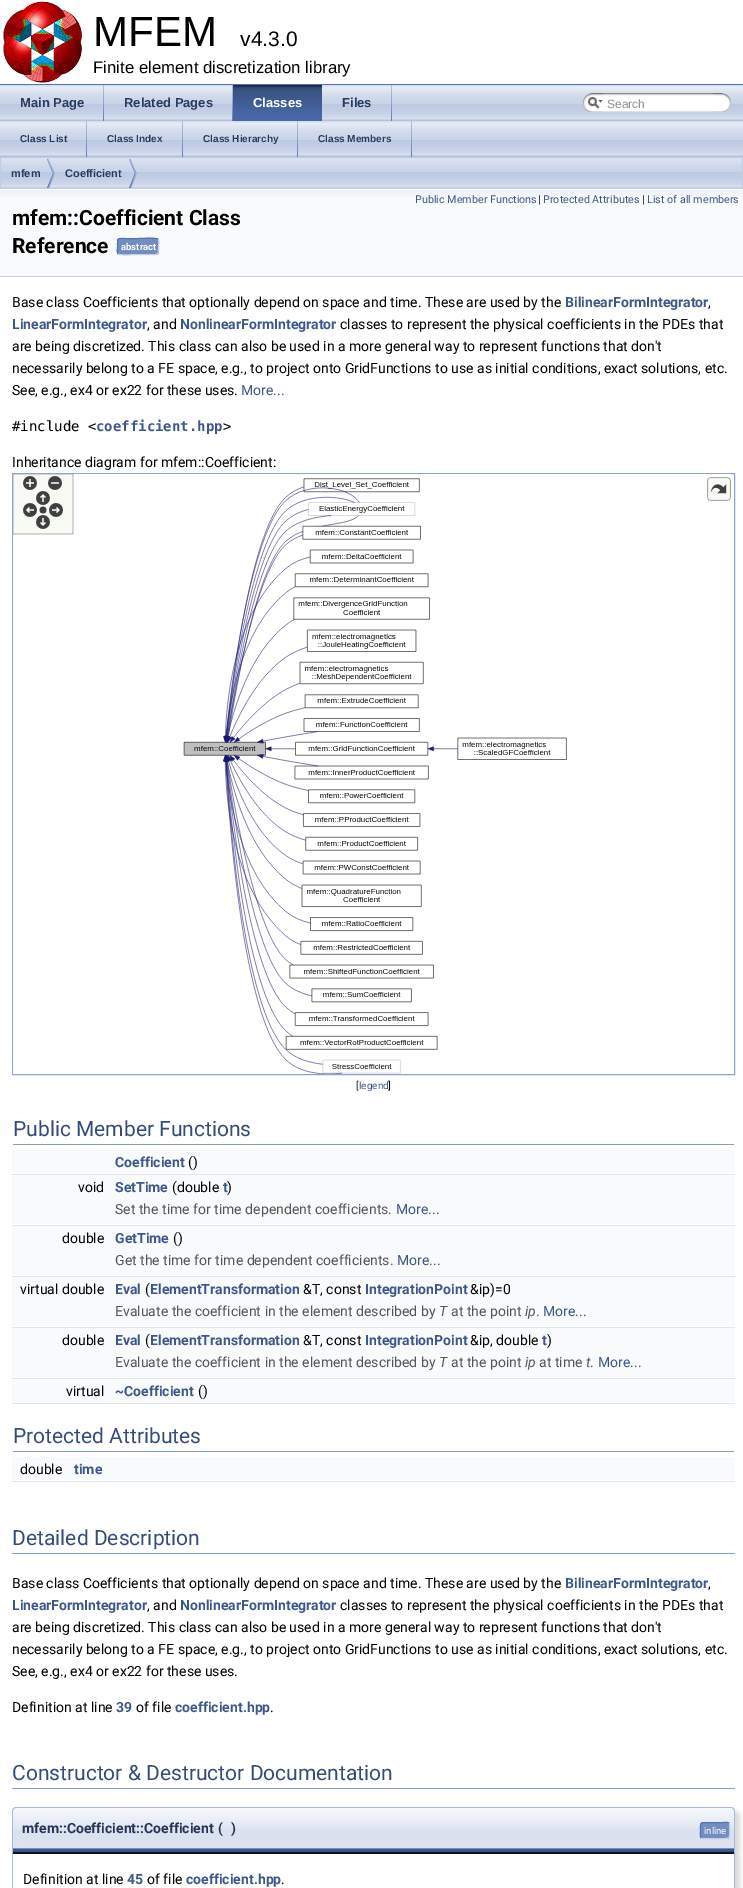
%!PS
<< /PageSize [743 1888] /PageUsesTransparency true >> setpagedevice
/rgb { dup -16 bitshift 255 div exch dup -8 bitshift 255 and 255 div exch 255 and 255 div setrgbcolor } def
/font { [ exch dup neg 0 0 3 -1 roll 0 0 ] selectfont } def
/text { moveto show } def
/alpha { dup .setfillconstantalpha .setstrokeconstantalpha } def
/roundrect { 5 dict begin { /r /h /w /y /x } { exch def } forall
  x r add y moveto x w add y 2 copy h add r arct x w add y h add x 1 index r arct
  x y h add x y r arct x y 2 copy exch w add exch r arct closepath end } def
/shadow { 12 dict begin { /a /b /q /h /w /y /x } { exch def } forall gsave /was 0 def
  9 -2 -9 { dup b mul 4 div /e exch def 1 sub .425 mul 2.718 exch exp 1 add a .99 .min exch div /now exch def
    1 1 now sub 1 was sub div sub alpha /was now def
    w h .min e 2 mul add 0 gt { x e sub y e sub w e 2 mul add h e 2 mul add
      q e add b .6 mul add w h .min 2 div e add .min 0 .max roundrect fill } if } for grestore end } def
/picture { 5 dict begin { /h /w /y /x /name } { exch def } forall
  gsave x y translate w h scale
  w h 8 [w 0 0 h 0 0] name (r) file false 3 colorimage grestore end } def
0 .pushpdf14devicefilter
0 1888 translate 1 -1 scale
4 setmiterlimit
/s1 { /LiberationSans-Regular 42 font 16#000000 rgb } def
/s2 { /LiberationSans-Regular 21 font 16#000000 rgb } def
/s3 { /LiberationSans-Regular 16.75 font 16#000000 rgb } def
/s4 { /LiberationSans-Bold 13 font 16#283A5D rgb } def
/s5 { /LiberationSans-Bold 13 font 16#FFFFFF rgb } def
/s6 { /LiberationSans-Regular 12 font 16#909090 rgb } def
/s7 { /LiberationSans-Bold 10 font 16#283A5D rgb } def
/s8 { /LiberationSans-Bold 11 font 16#283A5D rgb } def
/s9 { /Roboto-Regular 10.75 font 16#3D578C rgb } def
/s10 { /Roboto-Regular 10.75 font 16#000000 rgb } def
/s11 { /Roboto-Bold 21 font 16#000000 rgb } def
/s12 { /Roboto-Bold 9.5 font 16#FFFFFF rgb } def
/s13 { /Roboto-Regular 14 font 16#000000 rgb } def
/s14 { /Roboto-Bold 14 font 16#3D578C rgb } def
/s15 { /Roboto-Regular 14 font 16#3D578C rgb } def
/s16 { /DejaVuSansMono-Regular 14 font 16#000000 rgb } def
/s17 { /DejaVuSansMono-Bold 14 font 16#3D578C rgb } def
/s18 { /Roboto-Regular 10 font 16#000000 rgb } def
/s19 { /Roboto-Regular 10 font 16#3D578C rgb } def
/s20 { /Roboto-Regular 21 font 16#354C7B rgb } def
/s21 { /Roboto-Regular 14 font 16#555555 rgb } def
/s22 { /Roboto-Italic 14 font 16#555555 rgb } def
/s23 { /Roboto-Bold 14 font 16#253555 rgb } def
/s24 { /Roboto-Regular 9.5 font 16#FFFFFF rgb } def
16#FFFFFF rgb
0 0 743 1888 rectfill
16#5373B4 rgb
0 84 743 1 rectfill
(pic1.raw) 3 1 79 82 picture
s1
(MFEM) 93 46 text
s2
(v4.3.0) 240 46 text
s3
(Finite element discretization library) 93 73 text
(pic2.raw) 0 85 743 36 picture
(pic3.raw) 103 85 1 36 picture
s4
(Main Page) 20 107 text
(pic3.raw) 232 85 1 36 picture
(Related Pages) 124 107 text
(pic4.raw) 233 85 89 36 picture
s5
(Classes) 253 107 text
(pic3.raw) 391 85 1 36 picture
s4
(Files) 342 107 text
(pic5.raw) 583 93 20 19 picture
(pic6.raw) 588 97 15 12 picture
(pic7.raw) 603 93 110 19 picture
s6
(Search) 607 108 text
(pic8.raw) 713 93 18 19 picture
(pic2.raw) 0 121 743 36 picture
(pic3.raw) 86 121 1 36 picture
s7
(Class List) 20 142 text
(pic3.raw) 182 121 1 36 picture
(Class Index) 107 142 text
(pic3.raw) 297 121 1 36 picture
(Class Hierarchy) 203 142 text
(pic3.raw) 411 121 1 36 picture
(Class Members) 318 142 text
(pic9.raw) 1 158 741 30 picture
16#C2CDE4 rgb
0.5 157.5 742 31 rectstroke
(pic10.raw) 47 159 8 29 picture
s8
(mfem) 11 177 text
(pic10.raw) 129 159 8 29 picture
(Coefficient) 65 177 text
16#F9FAFC rgb
0 197 743 79 rectfill
(pic11.raw) 0 189 743 8 picture
16#C4CFE5 rgb
0 276 743 1 rectfill
s9
(Public Member Functions) 415 203 text
s10
(|) 538 203 text
s9
(Protected Attributes) 543 203 text
s10
(|) 642 203 text
s9
(List of all members) 647 203 text
s11
(mfem::Coefficient Class) 12 225 text
(Reference) 12 253 text
16#728DC1 rgb
117 238 42 17 3 roundrect fill
16#C4CFE5 rgb
158 239 moveto 159.5 241 158.5 244.5 158.5 246.5 curveto 158.5 255.5 159 254.5 150 254.5 curveto 138 254.5 lineto 135 254.5 120 255.5 118 254 curveto stroke
16#5373B4 rgb
118 254 moveto 116.5 252 117.5 248.5 117.5 246.5 curveto 117.5 237.5 117 238.5 126 238.5 curveto 138 238.5 lineto 141 238.5 156 237.5 158 239 curveto stroke
s12
(abstract) 121 250 text
s13
(Base class Coefficients that optionally depend on space and time. These are used by the) 12 307 text
s14
(BilinearFormIntegrator) 565 307 text
s13
(,) 708 307 text
s14
(LinearFormIntegrator) 12 329 text
s13
(, and) 147 329 text
s14
(NonlinearFormIntegrator) 180 329 text
s13
(classes to represent the physical coefficients in the PDEs that) 340 329 text
(are being discretized. This class can also be used in a more general way to represent functions that don't) 12 351 text
(necessarily belong to a FE space, e.g., to project onto GridFunctions to use as initial conditions, exact solutions, etc.) 12 373 text
(See, e.g., ex4 or ex22 for these uses.) 12 395 text
s15
(More...) 241 395 text
s16
(#include <) 12 431 text
s17
(coefficient.hpp) 96 431 text
s16
(>) 223 431 text
s13
(Inheritance diagram for mfem::Coefficient:) 12 467 text
16#90A5CE rgb
12.5 473.5 722 601 rectstroke
(pic12.raw) 13 474 718 600 picture
s18
([) 356 1089 text
s19
(legend) 359 1089 text
s18
(]) 388 1089 text
16#879ECB rgb
13 1144 721 1 rectfill
s20
(Public Member Functions) 13 1136 text
16#F9FAFC rgb
12 1150 723 23 rectfill
s14
(Coefficient) 115 1167 text
s13
(\(\)) 188 1167 text
16#DEE4F0 rgb
12 1174 723 1 rectfill
16#F9FAFC rgb
12 1175 723 23 rectfill
s13
(void) 78 1192 text
s14
(SetTime) 115 1192 text
s13
(\(double) 172 1192 text
s14
(t) 223 1192 text
s13
(\)) 227 1192 text
16#F9FAFC rgb
12 1198 723 26 rectfill
s21
(Set the time for time dependent coefficients.) 115 1214 text
s15
(More...) 396 1214 text
16#DEE4F0 rgb
12 1225 723 1 rectfill
16#F9FAFC rgb
12 1226 723 23 rectfill
s13
(double) 62 1243 text
s14
(GetTime) 115 1243 text
s13
(\(\)) 173 1243 text
16#F9FAFC rgb
12 1249 723 26 rectfill
s21
(Get the time for time dependent coefficients.) 115 1265 text
s15
(More...) 397 1265 text
16#DEE4F0 rgb
12 1276 723 1 rectfill
16#F9FAFC rgb
12 1277 723 23 rectfill
s13
(virtual double) 20 1294 text
s14
(Eval) 115 1294 text
s13
(\() 145 1294 text
s14
(ElementTransformation) 150 1294 text
s13
(&T, const) 303 1294 text
s14
(IntegrationPoint) 365 1294 text
s13
(&ip\)=0) 470 1294 text
16#F9FAFC rgb
12 1300 723 26 rectfill
s21
(Evaluate the coefficient in the element described by) 115 1316 text
s22
(T) 439 1316 text
s21
(at the point) 451 1316 text
s22
(ip) 525 1316 text
s21
(.) 536 1316 text
s15
(More...) 543 1316 text
16#DEE4F0 rgb
12 1327 723 1 rectfill
16#F9FAFC rgb
12 1328 723 23 rectfill
s13
(double) 62 1345 text
s14
(Eval) 115 1345 text
s13
(\() 145 1345 text
s14
(ElementTransformation) 150 1345 text
s13
(&T, const) 303 1345 text
s14
(IntegrationPoint) 365 1345 text
s13
(&ip, double) 470 1345 text
s14
(t) 542 1345 text
s13
(\)) 547 1345 text
16#F9FAFC rgb
12 1351 723 26 rectfill
s21
(Evaluate the coefficient in the element described by) 115 1367 text
s22
(T) 439 1367 text
s21
(at the point) 451 1367 text
s22
(ip) 525 1367 text
s21
(at time) 539 1367 text
s22
(t) 586 1367 text
s21
(.) 590 1367 text
s15
(More...) 598 1367 text
16#DEE4F0 rgb
12 1378 723 1 rectfill
16#F9FAFC rgb
12 1379 723 23 rectfill
s13
(virtual) 66 1396 text
s14
(~Coefficient) 115 1396 text
s13
(\(\)) 198 1396 text
16#DEE4F0 rgb
12 1403 723 1 rectfill
16#879ECB rgb
13 1451 721 1 rectfill
s20
(Protected Attributes) 13 1443 text
16#F9FAFC rgb
12 1457 723 23 rectfill
s13
(double) 20 1474 text
s14
(time) 74 1474 text
16#DEE4F0 rgb
12 1481 723 1 rectfill
16#879ECB rgb
12 1553 723 1 rectfill
s20
(Detailed Description) 12 1545 text
s13
(Base class Coefficients that optionally depend on space and time. These are used by the) 12 1588 text
s14
(BilinearFormIntegrator) 565 1588 text
s13
(,) 708 1588 text
s14
(LinearFormIntegrator) 12 1610 text
s13
(, and) 147 1610 text
s14
(NonlinearFormIntegrator) 180 1610 text
s13
(classes to represent the physical coefficients in the PDEs that) 340 1610 text
(are being discretized. This class can also be used in a more general way to represent functions that don't) 12 1632 text
(necessarily belong to a FE space, e.g., to project onto GridFunctions to use as initial conditions, exact solutions, etc.) 12 1654 text
(See, e.g., ex4 or ex22 for these uses.) 12 1676 text
(Definition at line) 12 1712 text
s14
(39) 116 1712 text
s13
(of file) 136 1712 text
s14
(coefficient.hpp) 175 1712 text
s13
(.) 270 1712 text
16#879ECB rgb
12 1788 723 1 rectfill
s20
(Constructor & Destructor Documentation) 12 1780 text
16#000000 rgb
17 1812 723 41 4 2.5 0.15 shadow
(pic13.raw) 12 1808 723 40 picture
16#A8B8D9 rgb
16 1807 moveto 731 1807 lineto 733 1807 735 1809 735 1811 curveto 735 1848 lineto 12 1848 lineto 12 1811 lineto 12 1809 14 1807 16 1807 curveto closepath 16 1808 moveto 731 1808 lineto 733 1808 734 1809 734 1811 curveto 734 1848 lineto 13 1848 lineto 13 1811 lineto 13 1809 14 1808 16 1808 curveto closepath eofill
s23
(mfem::Coefficient::Coefficient) 22 1833 text
(\() 218 1833 text
(\)) 231 1833 text
16#728DC1 rgb
700 1822 30 17 3 roundrect fill
16#C4CFE5 rgb
729 1823 moveto 730 1824.5 729.5 1829 729.5 1830.5 curveto 729.5 1838 730.5 1838.5 723 1838.5 curveto 707 1838.5 lineto 705.5 1838.5 702.5 1839 701 1838 curveto stroke
16#5373B4 rgb
701 1838 moveto 700 1836.5 700.5 1832 700.5 1830.5 curveto 700.5 1823 699.5 1822.5 707 1822.5 curveto 723 1822.5 lineto 724.5 1822.5 727.5 1822 729 1823 curveto stroke
s24
(inline) 704 1834 text
16#000000 rgb
17 1853 723 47 4 2.5 0.15 shadow
16#FFFFFF rgb
13 1854 721 34 rectfill
(pic14.raw) 13 1848 721 6 picture
16#A8B8D9 rgb
12 1848 moveto 735 1848 lineto 735 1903 lineto 735 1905 733 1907 731 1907 curveto 16 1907 lineto 14 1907 12 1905 12 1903 curveto closepath 13 1848 moveto 734 1848 lineto 734 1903 lineto 734 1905 733 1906 731 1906 curveto 16 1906 lineto 14 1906 13 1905 13 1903 curveto closepath eofill
s13
(Definition at line) 23 1884 text
s14
(45) 127 1884 text
s13
(of file) 147 1884 text
s14
(coefficient.hpp) 186 1884 text
s13
(.) 281 1884 text
.poppdf14devicefilter showpage
